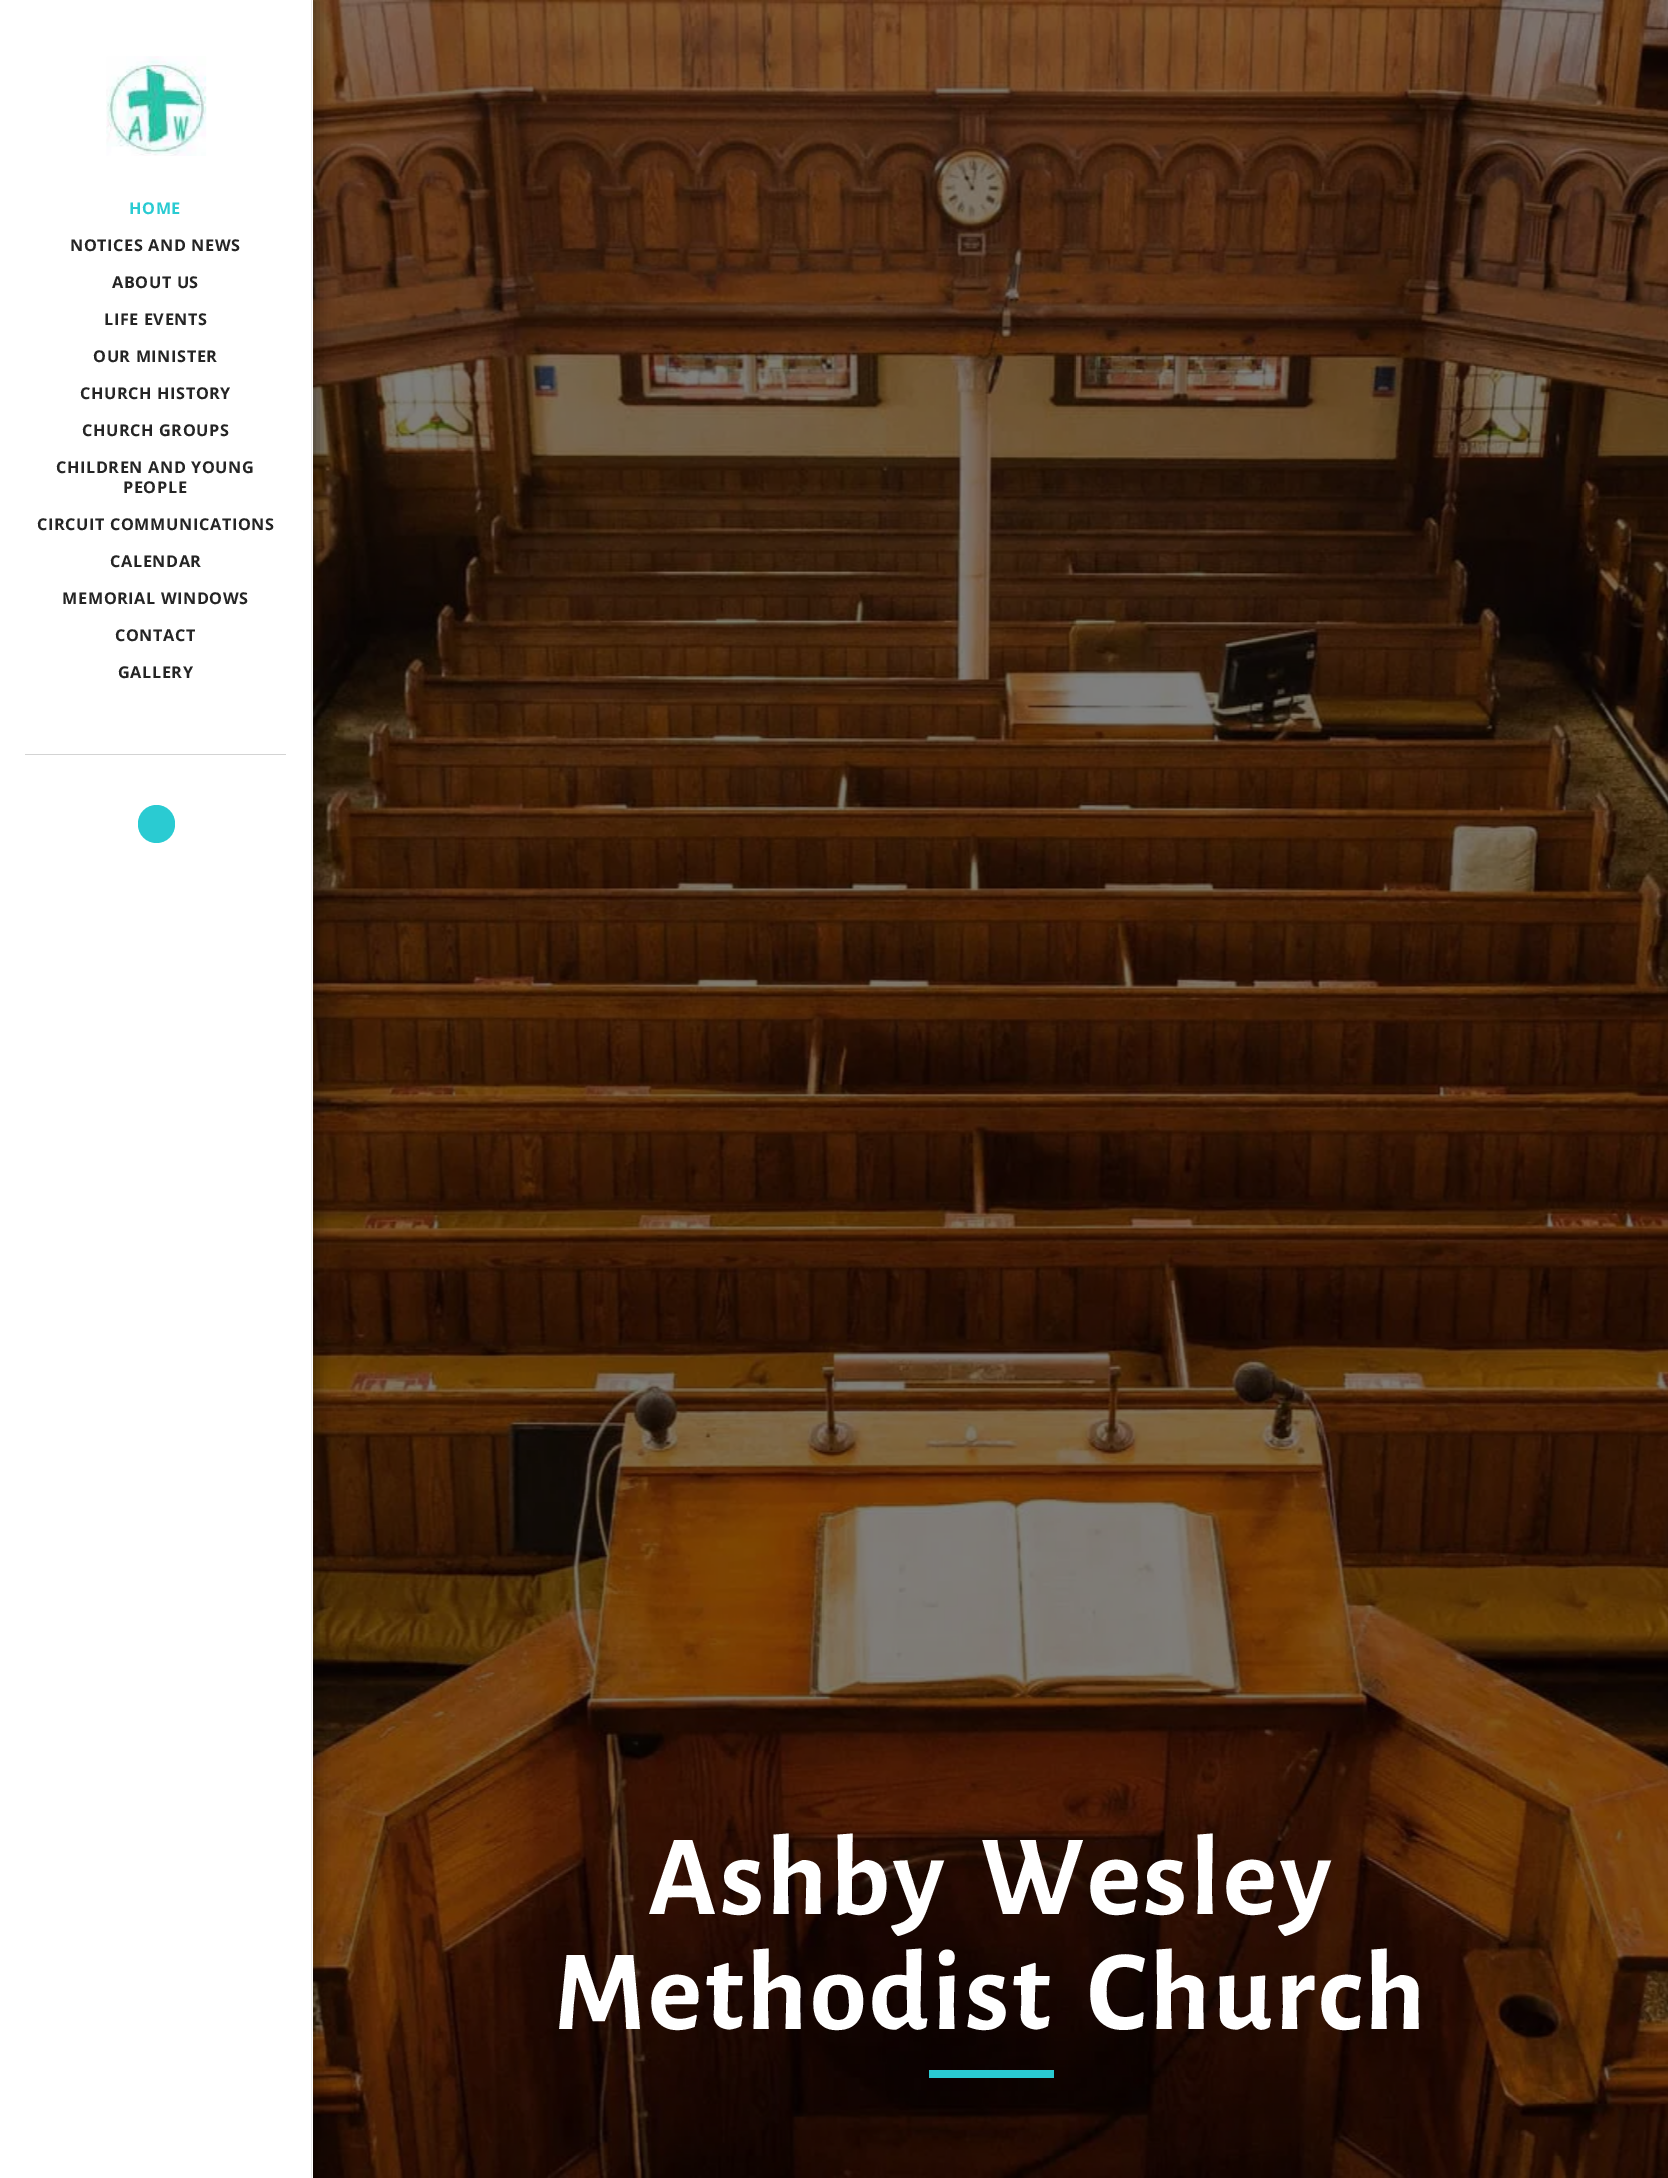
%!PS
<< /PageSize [1668 2178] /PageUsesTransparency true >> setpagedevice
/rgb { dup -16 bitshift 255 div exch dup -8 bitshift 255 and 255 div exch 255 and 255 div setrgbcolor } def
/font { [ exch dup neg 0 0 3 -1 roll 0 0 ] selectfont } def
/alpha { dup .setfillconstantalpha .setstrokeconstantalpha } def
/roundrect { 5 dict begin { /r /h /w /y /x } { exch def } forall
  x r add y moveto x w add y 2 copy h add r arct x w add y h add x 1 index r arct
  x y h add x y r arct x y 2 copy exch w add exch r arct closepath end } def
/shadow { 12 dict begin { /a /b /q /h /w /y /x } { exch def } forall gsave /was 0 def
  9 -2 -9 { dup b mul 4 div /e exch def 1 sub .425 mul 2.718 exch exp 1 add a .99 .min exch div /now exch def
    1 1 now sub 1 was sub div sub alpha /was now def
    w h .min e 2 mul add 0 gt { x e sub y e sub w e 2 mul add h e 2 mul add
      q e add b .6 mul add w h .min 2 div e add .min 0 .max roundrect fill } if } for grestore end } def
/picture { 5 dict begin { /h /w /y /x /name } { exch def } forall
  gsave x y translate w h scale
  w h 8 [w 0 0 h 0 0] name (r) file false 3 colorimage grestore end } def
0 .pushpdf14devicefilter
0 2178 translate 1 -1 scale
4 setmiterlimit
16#000000 rgb
0 0 1668 2178 rectfill
(pic2.raw) 313 0 1355 2178 picture
0 -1 318 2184 0 7.5 0.35 shadow
16#FFFFFF rgb
0 0 313 2178 rectfill
16#EBEBEB rgb
311 0 1 2178 rectfill
(pic1.raw) 106 56 101 100 picture
/OpenSans-Bold 16.25 font
16#2ACBD2 rgb
129 214 moveto 0.6 0 (HOME) ashow
16#252525 rgb
70 251 moveto 0.6 0 (NOTICES AND NEWS) ashow
112 288 moveto 0.6 0 (ABOUT US) ashow
104 325 moveto 0.6 0 (LIFE EVENTS) ashow
93 362 moveto 0.6 0 (OUR MINISTER) ashow
80 399 moveto 0.6 0 (CHURCH HISTORY) ashow
82 436 moveto 0.6 0 (CHURCH GROUPS) ashow
56 473 moveto 0.6 0 (CHILDREN AND YOUNG) ashow
123 493 moveto 0.6 0 (PEOPLE) ashow
37 530 moveto 0.6 0 (CIRCUIT COMMUNICATIONS) ashow
110 567 moveto 0.6 0 (CALENDAR) ashow
62 604 moveto 0.6 0 (MEMORIAL WINDOWS) ashow
115 641 moveto 0.6 0 (CONTACT) ashow
118 678 moveto 0.6 0 (GALLERY) ashow
16#D3D3D3 rgb
25 754 261 1 rectfill
16#2ACBD2 rgb
138 805 37 38 18.5 roundrect fill
/AlegreyaSans-Bold 115 font
16#FFFFFF rgb
648 1914 moveto 14 0 32 2.5 0 (Ashby Wesley) awidthshow
554 2029 moveto 14 0 32 2.5 0 (Methodist Church) awidthshow
16#2ACBD2 rgb
929 2070 125 8 rectfill
.poppdf14devicefilter showpage
